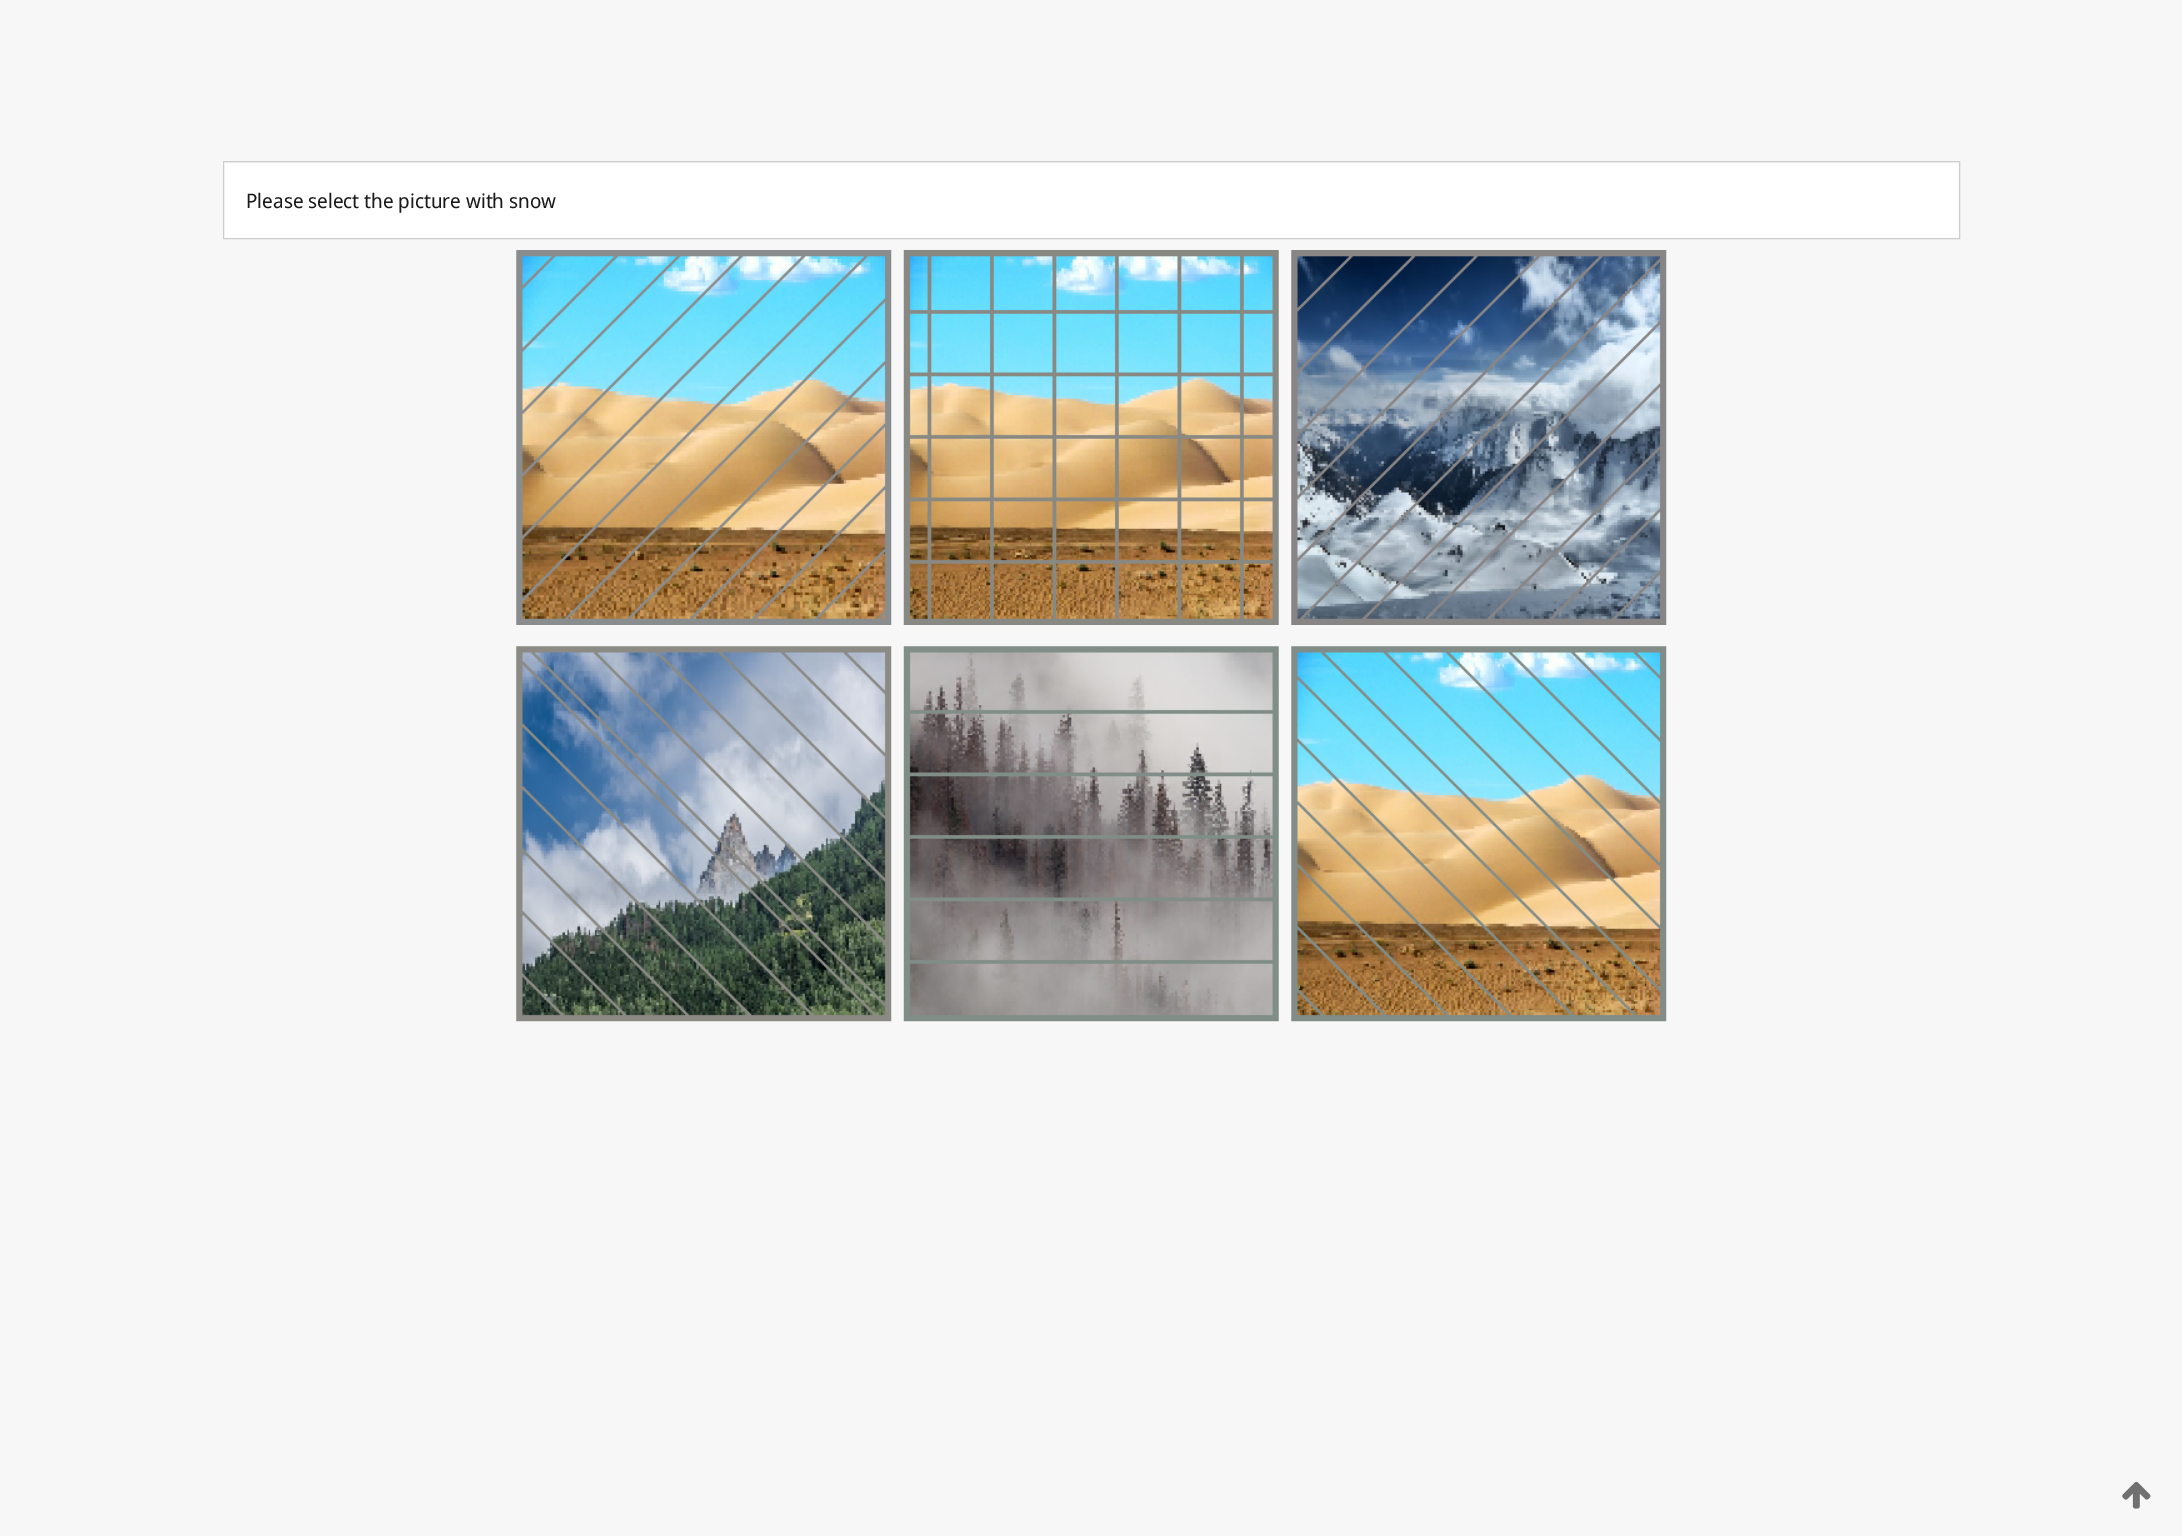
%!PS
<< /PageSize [2182 1536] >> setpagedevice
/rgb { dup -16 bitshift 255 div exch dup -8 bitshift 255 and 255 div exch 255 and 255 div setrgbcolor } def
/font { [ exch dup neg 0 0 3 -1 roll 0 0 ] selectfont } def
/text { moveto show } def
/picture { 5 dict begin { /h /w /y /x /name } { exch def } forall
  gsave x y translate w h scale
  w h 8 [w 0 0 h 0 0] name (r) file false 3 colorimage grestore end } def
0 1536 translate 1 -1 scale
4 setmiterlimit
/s1 { /NotoSansDisplay-Regular 20 font 16#1A1A1A rgb } def
16#F7F7F7 rgb
0 0 2182 1536 rectfill
16#FFFFFF rgb
224 163 1735 75 rectfill
16#CCCCCC rgb
223.5 161.5 1736 77 rectstroke
s1
(Please select the picture with snow) 246 208 text
(pic1.raw) 516 250 376 375 picture
(pic2.raw) 903 250 376 375 picture
(pic3.raw) 1291 250 376 375 picture
(pic4.raw) 516 646 376 376 picture
(pic5.raw) 903 646 376 376 picture
(pic6.raw) 1291 646 376 376 picture
(pic7.raw) 2122 1481 29 28 picture
showpage
